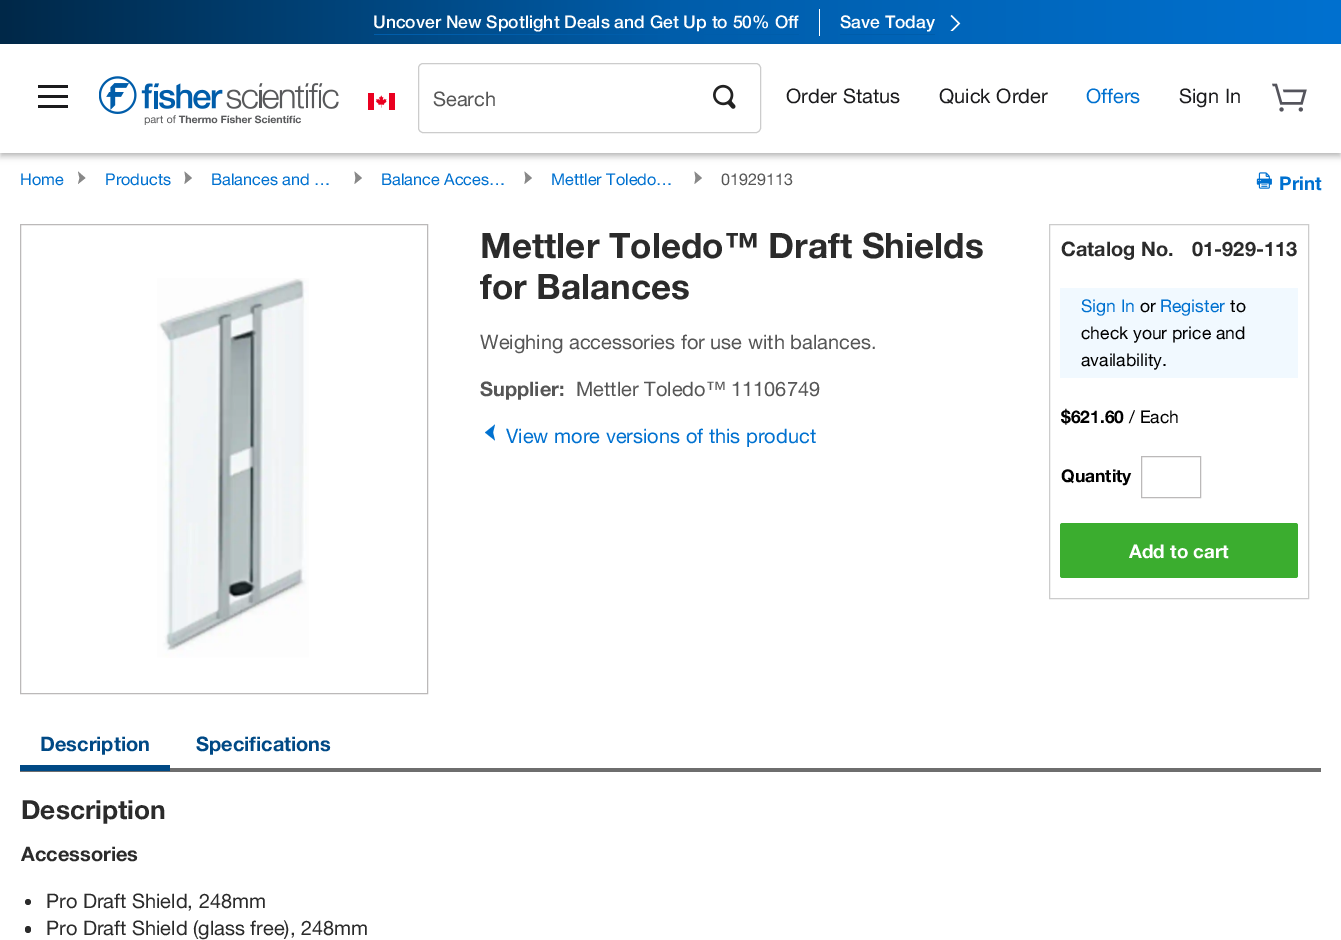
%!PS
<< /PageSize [1341 940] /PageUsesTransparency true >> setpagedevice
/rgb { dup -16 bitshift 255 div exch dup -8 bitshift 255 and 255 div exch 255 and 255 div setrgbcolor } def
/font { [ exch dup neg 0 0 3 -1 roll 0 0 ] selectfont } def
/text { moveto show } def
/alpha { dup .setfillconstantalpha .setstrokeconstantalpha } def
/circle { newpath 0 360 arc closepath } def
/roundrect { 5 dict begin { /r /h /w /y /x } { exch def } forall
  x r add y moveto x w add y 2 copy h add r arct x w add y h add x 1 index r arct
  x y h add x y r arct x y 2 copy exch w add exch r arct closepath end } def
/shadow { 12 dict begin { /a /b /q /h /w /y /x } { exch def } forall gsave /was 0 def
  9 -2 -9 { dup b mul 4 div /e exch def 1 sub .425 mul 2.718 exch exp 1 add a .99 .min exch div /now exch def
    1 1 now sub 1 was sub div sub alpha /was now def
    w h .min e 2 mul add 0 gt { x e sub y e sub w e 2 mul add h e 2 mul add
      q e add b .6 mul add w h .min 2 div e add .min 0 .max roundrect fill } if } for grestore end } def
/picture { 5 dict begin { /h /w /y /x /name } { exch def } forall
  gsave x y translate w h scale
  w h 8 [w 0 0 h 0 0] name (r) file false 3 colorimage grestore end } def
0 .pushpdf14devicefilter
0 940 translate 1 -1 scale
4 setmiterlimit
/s1 { /HelveticaNeue-Medium 17.5 font 16#FFFFFF rgb } def
/s2 { /HelveticaNeue-Regular 20 font 16#565656 rgb } def
/s3 { /HelveticaNeue-Regular 20 font 16#1B1B1D rgb } def
/s4 { /HelveticaNeue-Regular 20 font 16#0071D0 rgb } def
/s5 { /HelveticaNeue-Regular 16.25 font 16#0071D0 rgb } def
/s6 { /HelveticaNeue-Regular 16.25 font 16#565656 rgb } def
/s7 { /HelveticaNeue-Bold 18.75 font 16#0071D0 rgb } def
/s8 { /HelveticaNeue-Bold 35 font 16#2B2B2B rgb } def
/s9 { /HelveticaNeue-Bold 20 font 16#565656 rgb } def
/s10 { /HelveticaNeue-Bold 20 font 16#2B2B2B rgb } def
/s11 { /HelveticaNeue-Regular 17.5 font 16#0071D0 rgb } def
/s12 { /HelveticaNeue-Regular 17.5 font 16#000000 rgb } def
/s13 { /HelveticaNeue-Bold 17.5 font 16#000000 rgb } def
/s14 { /HelveticaNeue-Bold 18.75 font 16#FFFFFF rgb } def
/s15 { /HelveticaNeue-Bold 20 font 16#004985 rgb } def
/s16 { /HelveticaNeue-Bold 26.25 font 16#2B2B2B rgb } def
/s17 { /HelveticaNeue-Regular 20 font 16#2B2B2B rgb } def
16#FFFFFF rgb
0 0 1341 940 rectfill
gsave 0 0 moveto 1341 0 lineto 1341 44 lineto 0 44 lineto closepath clip newpath
<< /ShadingType 2 /ColorSpace /DeviceRGB /Coords [1341 22 0 22] /Extend [true true] /Function << /FunctionType 3 /Domain [0 1] /Functions [<< /FunctionType 2 /Domain [0 1] /C0 [0 0.443 0.816] /C1 [0 0.365 0.667] /N 1 >> << /FunctionType 2 /Domain [0 1] /C0 [0 0.365 0.667] /C1 [0 0.157 0.282] /N 1 >>] /Bounds [0.5] /Encode [0 1 0 1] >> >> shfill grestore
s1
(Uncover New Spotlight Deals and Get Up to 50% Off) 373 28 text
16#005DAA rgb
374 34 425 1 rectfill
16#FFFFFF rgb
819 9 1 27 rectfill
(Save Today) 840 28 text
16#005DAA rgb
840 34 95 1 rectfill
(pic1.raw) 950 14 11 17 picture
16#000000 rgb
0 49 1341 109 0 3 0.14 shadow
1 48 1339 106 0 2.5 0.2 shadow
16#FFFFFF rgb
0 44 1341 109 rectfill
16#1B1B1D rgb
38 95 30 3 rectfill
38 85 30 3 rectfill
38 105 30 3 rectfill
(pic2.raw) 99 76 240 49 picture
(pic3.raw) 368 93 27 17 picture
16#CCCCCC rgb
418.5 63.5 342 69 4.5 roundrect stroke
s2
(Search) 433 106 text
(pic4.raw) 713 84 23 25 picture
s3
(Order Status) 786 103 text
(Quick Order) 939 103 text
s4
(Offers) 1086 103 text
s3
(Sign In) 1179 103 text
(pic5.raw) 1272 83 35 29 picture
s5
(Home) 20 185 text
16#888888 rgb
78 171.5 moveto 79.5 178 lineto 78 184 lineto 85.5 178 lineto closepath fill
s5
(Products) 105 185 text
16#888888 rgb
184.5 171.5 moveto 185.5 178 lineto 184.5 184 lineto 192 178 lineto closepath fill
s5
(Balances and …) 211 185 text
16#888888 rgb
354.5 171.5 moveto 355.5 178 lineto 354.5 184 lineto 362 178 lineto closepath fill
s5
(Balance Acces…) 381 185 text
16#888888 rgb
524.5 171.5 moveto 525.5 178 lineto 524.5 184 lineto 532 178 lineto closepath fill
s5
(Mettler Toledo…) 551 185 text
16#888888 rgb
694.5 171.5 moveto 695.5 178 lineto 694.5 184 lineto 702 178 lineto closepath fill
s6
(01929113) 721 185 text
(pic6.raw) 1256 172 16 17 picture
s7
(Print) 1279 190 text
16#BBB9B9 rgb
20.5 224.5 407 469 rectstroke
(pic7.raw) 157 278 152 380 picture
s8
(Mettler Toledo™ Draft Shields) 480 258 text
(for Balances) 480 299 text
s2
(Weighing accessories for use with balances.) 480 349 text
s9
(Supplier:) 480 396 text
s2
(Mettler Toledo™ 11106749) 576 396 text
16#0071D0 rgb
495 440.5 moveto 493 432.5 lineto 495 424.5 lineto 485 432.5 lineto closepath fill
(View more versions of this product) 506 443 text
16#CCCCCC rgb
1049.5 224.5 259 374 rectstroke
s10
(Catalog No.) 1061 256 text
(01-929-113) 1192 256 text
16#F1F9FF rgb
1060 288 238 90 rectfill
s11
(Sign In) 1081 312 text
s12
(or) 1140 312 text
s11
(Register) 1160 312 text
s12
(to) 1230 312 text
(check your price and) 1081 339 text
(availability.) 1081 366 text
s13
($621.60) 1061 423 text
s12
(/ Each) 1129 423 text
s13
(Quantity) 1061 482 text
16#BBB9B9 rgb
1141.5 456.5 59 41 rectstroke
16#3BAD2F rgb
1060 523 238 55 2.5 roundrect fill
s14
(Add to cart) 1129 558 text
16#6E6E6E rgb
20 768 1301 4 rectfill
16#004985 rgb
20 765 150 6 rectfill
s15
(Description) 40 751 text
(Specifications) 196 751 text
s16
(Description) 21 819 text
s10
(Accessories) 21 861 text
28 902 3 circle fill
s17
(Pro Draft Shield, 248mm) 46 908 text
25 926 6 7 3 roundrect fill
(Pro Draft Shield \(glass free\), 248mm) 46 935 text
.poppdf14devicefilter showpage
